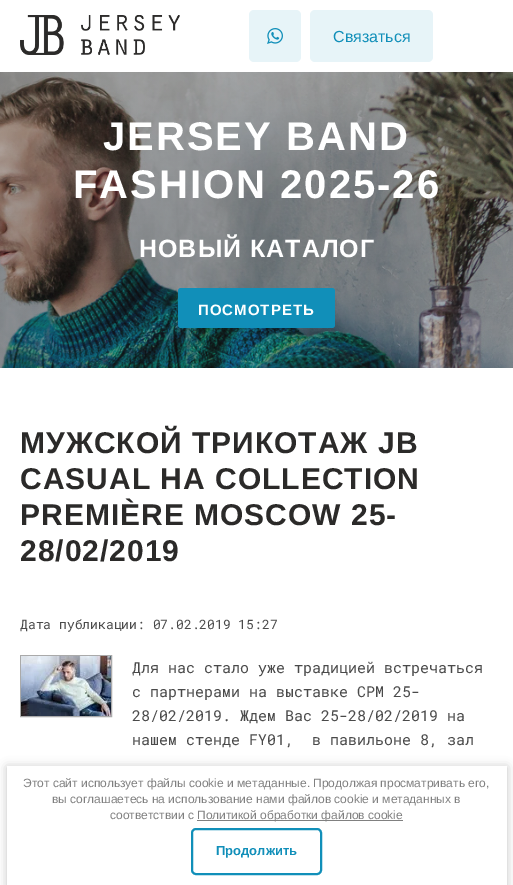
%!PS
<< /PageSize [513 885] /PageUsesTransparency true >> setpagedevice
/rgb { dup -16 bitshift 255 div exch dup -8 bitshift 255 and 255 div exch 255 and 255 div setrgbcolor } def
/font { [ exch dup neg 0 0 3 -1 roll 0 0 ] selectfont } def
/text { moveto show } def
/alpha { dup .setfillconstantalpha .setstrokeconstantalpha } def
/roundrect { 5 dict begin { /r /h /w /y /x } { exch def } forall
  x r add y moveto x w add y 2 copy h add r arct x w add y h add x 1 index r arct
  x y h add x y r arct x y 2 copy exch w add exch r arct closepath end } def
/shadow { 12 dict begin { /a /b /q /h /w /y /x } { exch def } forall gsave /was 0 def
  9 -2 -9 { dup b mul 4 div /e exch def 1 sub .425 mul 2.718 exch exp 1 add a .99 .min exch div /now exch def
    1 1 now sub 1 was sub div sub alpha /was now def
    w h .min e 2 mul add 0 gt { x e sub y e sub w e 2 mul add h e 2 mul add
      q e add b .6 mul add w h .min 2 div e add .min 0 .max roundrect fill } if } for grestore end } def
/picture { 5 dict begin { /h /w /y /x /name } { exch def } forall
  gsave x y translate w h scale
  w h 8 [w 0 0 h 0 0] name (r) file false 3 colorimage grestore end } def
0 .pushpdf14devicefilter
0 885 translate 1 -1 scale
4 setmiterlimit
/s1 { /LiberationSans-Regular 16 font 16#118FB9 rgb } def
/s2 { /RobotoMono-Regular 13 font 16#4A4A4A rgb } def
/s3 { /RobotoMono-Regular 15 font 16#4A4A4A rgb } def
/s4 { /LiberationSans-Regular 12 font 16#808080 rgb } def
/s5 { /LiberationSans-Bold 13 font 16#118FB9 rgb } def
16#FFFFFF rgb
0 0 513 885 rectfill
(pic1.raw) 20 15 160 40 picture
16#E7F4F8 rgb
249 10 52 52 5 roundrect fill
(pic2.raw) 267 28 16 16 picture
310 10 123 52 5 roundrect fill
s1
(Связаться) 333 42 text
(pic3.raw) 0 72 513 296 picture
/LiberationSans-Bold 40 font
16#FFFFFF rgb
103 150 moveto 2 0 (JERSEY BAND) ashow
73 198 moveto 2 0 (FASHION 2025-26) ashow
/LiberationSans-Bold 25 font
139 257 moveto 1 0 (НОВЫЙ КАТАЛОГ) ashow
16#118FB9 rgb
178 288 157 40 3 roundrect fill
/LiberationSans-Bold 15 font
16#FFFFFF rgb
198 315 moveto 1 0 (ПОСМОТРЕТЬ) ashow
/LiberationSans-Bold 30 font
16#2B2A29 rgb
20 453 moveto 1 0 (МУЖСКОЙ ТРИКОТАЖ JB) ashow
20 489 moveto 1 0 (CASUAL НА COLLECTION) ashow
20 525 moveto 1 0 (PREMIÈRE MOSCOW 25-) ashow
20 561 moveto 1 0 (28/02/2019) ashow
s2
(Дата публикации: 07.02.2019 15:27) 20 629 text
16#AAAAAA rgb
20.5 655.5 91 61 rectstroke
(pic4.raw) 21 656 90 60 picture
s3
(Для нас стало уже традицией встречаться) 132 673 text
(с партнерами на выставке CPM 25-) 132 697 text
(28/02/2019. Ждем Вас 25-28/02/2019 на) 132 721 text
(нашем стенде FY01,  в павильоне 8, зал) 132 745 text
16#000000 rgb
7 767 500 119 0 5 0.23 shadow
16#FFFFFF rgb
7 766 500 119 rectfill
s4
(Этот сайт использует файлы cookie и метаданные. Продолжая просматривать его,) 23 787 text
(вы соглашаетесь на использование нами файлов cookie и метаданных в) 52 803 text
(соответствии с) 110 819 text
197 820 206 1 rectfill
(Политикой обработки файлов cookie) 197 819 text
16#118FB9 rgb
2 setlinewidth
192 829 129 45 4 roundrect stroke
s5
(Продолжить) 216 855 text
.poppdf14devicefilter showpage
